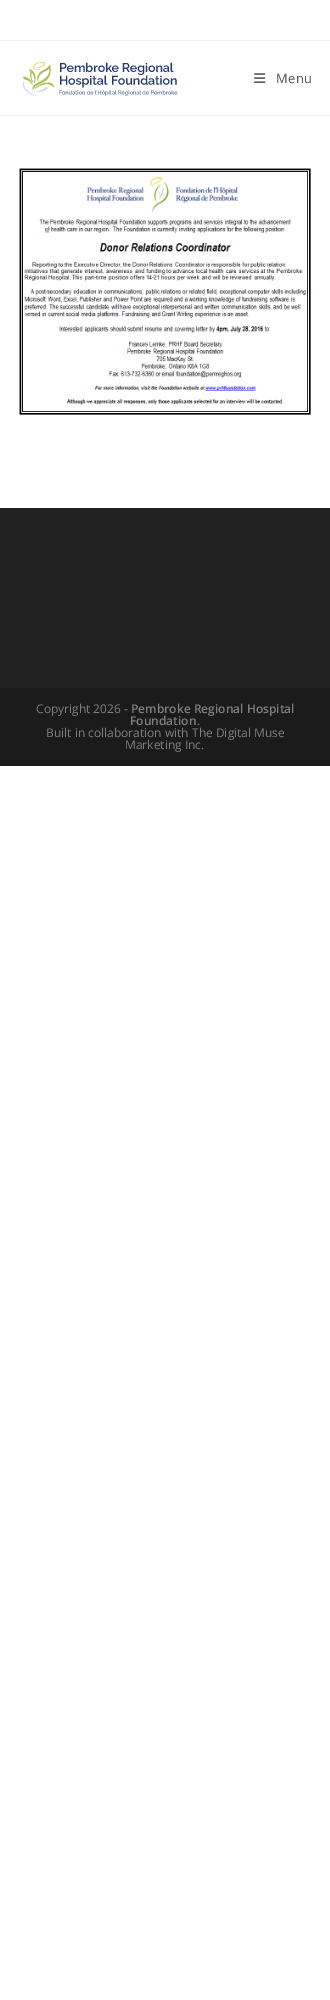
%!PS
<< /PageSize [330 2000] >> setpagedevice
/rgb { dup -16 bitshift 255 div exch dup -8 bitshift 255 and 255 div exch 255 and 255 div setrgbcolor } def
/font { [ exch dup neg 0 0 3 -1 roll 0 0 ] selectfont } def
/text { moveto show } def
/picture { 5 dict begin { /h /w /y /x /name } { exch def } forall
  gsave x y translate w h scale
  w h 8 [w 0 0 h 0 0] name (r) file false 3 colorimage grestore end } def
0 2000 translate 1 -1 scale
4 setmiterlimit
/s1 { /OpenSans-Regular 12 font 16#808080 rgb } def
/s2 { /OpenSans-SemiBold 12 font 16#808080 rgb } def
16#FFFFFF rgb
0 0 330 2000 rectfill
16#F1F1F1 rgb
0 40 330 1 rectfill
0 115 330 1 rectfill
(pic1.raw) 22 61 156 35 picture
(pic2.raw) 254 73 12 10 picture
/OpenSans-Regular 13 font
16#555555 rgb
276 83 moveto 0.5 0 (Menu) ashow
(pic3.raw) 19 168 292 247 picture
16#222222 rgb
0 508 330 180 rectfill
16#1B1B1B rgb
0 688 330 78 rectfill
s1
(Copyright 2026 -) 36 713 text
s2
(Pembroke Regional Hospital) 131 713 text
(Foundation) 130 725 text
s1
(.) 197 725 text
(Built in collaboration with The Digital Muse) 46 737 text
(Marketing Inc.) 125 749 text
showpage
